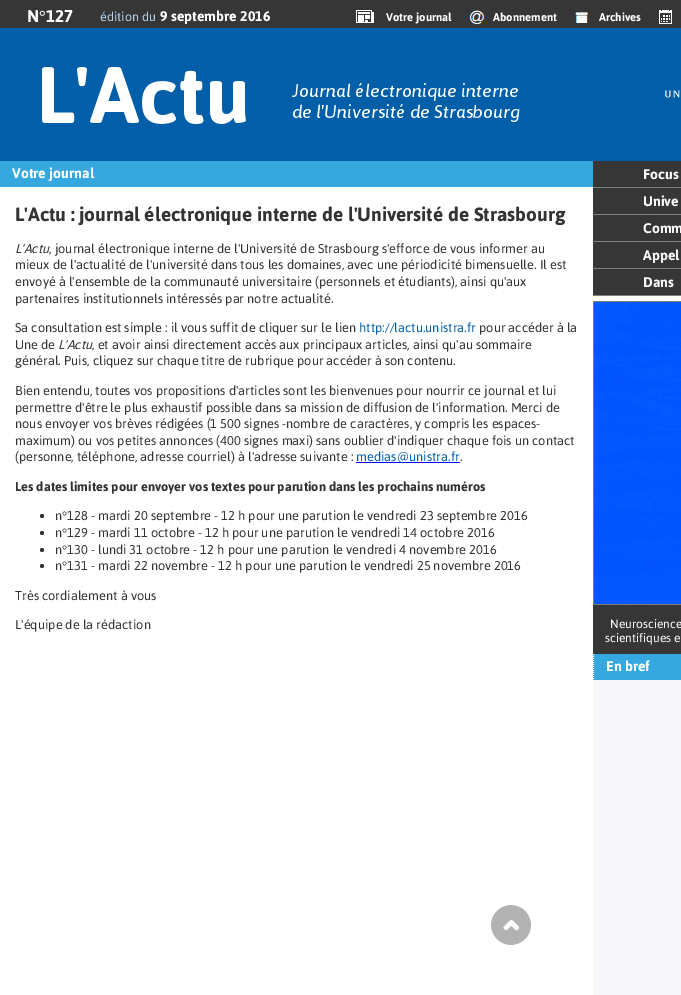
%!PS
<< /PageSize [681 995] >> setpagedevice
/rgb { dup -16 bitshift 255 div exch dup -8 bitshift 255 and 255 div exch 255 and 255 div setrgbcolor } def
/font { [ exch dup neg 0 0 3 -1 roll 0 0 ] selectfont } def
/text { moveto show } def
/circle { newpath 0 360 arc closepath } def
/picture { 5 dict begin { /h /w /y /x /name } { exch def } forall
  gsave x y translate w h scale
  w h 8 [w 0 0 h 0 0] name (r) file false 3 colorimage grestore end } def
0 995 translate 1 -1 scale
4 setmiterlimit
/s1 { /Asap-Bold 17 font 16#FFFFFF rgb } def
/s2 { /LiberationSerif-Bold 17 font 16#FFFFFF rgb } def
/s3 { /Asap-Regular 12.5 font 16#B4D2EB rgb } def
/s4 { /Asap-Bold 14 font 16#FFFFFF rgb } def
/s5 { /Asap-Bold 11.25 font 16#FFFFFF rgb } def
/s6 { /Asap-Bold 19.2 font 16#333333 rgb } def
/s7 { /Asap-Italic 12.8 font 16#333333 rgb } def
/s8 { /Asap-Regular 12.8 font 16#333333 rgb } def
/s9 { /Asap-Regular 12.8 font 16#015FA9 rgb } def
/s10 { /Asap-Bold 12.8 font 16#333333 rgb } def
/s11 { /LiberationSerif-Regular 12.8 font 16#333333 rgb } def
/s12 { /Asap-Bold 14 font 16#F7F7F9 rgb } def
/s13 { /Asap-Regular 12 font 16#FFFFFF rgb } def
16#FFFFFF rgb
0 0 681 995 rectfill
16#363636 rgb
0 0 681 28 rectfill
s1
(N) 27 22 text
s2
(°) 39 22 text
s1
(127) 46 22 text
s3
(édition du) 100 21 text
s4
(9 septembre 2016) 160 21 text
(pic1.raw) 356 10 18 13 picture
s5
(Votre journal) 386 21 text
(pic2.raw) 469 10 16 15 picture
(Abonnement) 493 21 text
(pic3.raw) 575 12 14 11 picture
(Archives) 599 21 text
(pic4.raw) 659 10 13 14 picture
16#005FA8 rgb
0 28 681 133 rectfill
(pic5.raw) 42 67 478 57 picture
(pic6.raw) 665 90 15 8 picture
16#35A9DF rgb
0 161 593 26 rectfill
s4
(Votre journal) 12 178 text
s6
(L'Actu : journal électronique interne de l'Université de Strasbourg) 15 221 text
s7
(L'Actu) 15 253 text
s8
(, journal électronique interne de l'Université de Strasbourg s'efforce de vous informer au) 49 253 text
(mieux de l'actualité de l'université dans tous les domaines, avec une périodicité bimensuelle. Il est) 15 269 text
(envoyé à l'ensemble de la communauté universitaire \(personnels et étudiants\), ainsi qu'aux) 15 286 text
(partenaires institutionnels intéressés par notre actualité.) 15 303 text
(Sa consultation est simple : il vous suffit de cliquer sur le lien) 15 332 text
s9
(http://lactu.unistra.fr) 359 332 text
s8
(pour accéder à la) 479 332 text
(Une de) 15 349 text
s7
(L'Actu) 58 349 text
s8
(, et avoir ainsi directement accès aux principaux articles, ainsi qu'au sommaire) 92 349 text
(général. Puis, cliquez sur chaque titre de rubrique pour accéder à son contenu.) 15 365 text
(Bien entendu, toutes vos propositions d'articles sont les bienvenues pour nourrir ce journal et lui) 15 395 text
(permettre d'être le plus exhaustif possible dans sa mission de diffusion de l'information. Merci de) 15 412 text
(nous envoyer vos brèves rédigées \(1 500 signes -nombre de caractères, y compris les espaces-) 15 428 text
(maximum\) ou vos petites annonces \(400 signes maxi\) sans oublier d'indiquer chaque fois un contact) 15 445 text
(\(personne, téléphone, adresse courriel\) à l'adresse suivante :) 15 461 text
16#0000FF rgb
356 462 104 1 rectfill
s9
(medias@unistra.fr) 356 461 text
s8
(.) 460 461 text
s10
(Les dates limites pour envoyer vos textes pour parution dans les prochains numéros) 15 491 text
42 516 2 circle fill
s8
(n) 55 520 text
s11
(°) 62 520 text
s8
(128 - mardi 20 septembre - 12 h pour une parution le vendredi 23 septembre 2016) 67 520 text
42 533 2 circle fill
(n) 55 537 text
s11
(°) 62 537 text
s8
(129 - mardi 11 octobre - 12 h pour une parution le vendredi 14 octobre 2016) 67 537 text
42 550 2 circle fill
(n) 55 554 text
s11
(°) 62 554 text
s8
(130 - lundi 31 octobre - 12 h pour une parution le vendredi 4 novembre 2016) 67 554 text
42 566 2 circle fill
(n) 55 570 text
s11
(°) 62 570 text
s8
(131 - mardi 22 novembre - 12 h pour une parution le vendredi 25 novembre 2016) 67 570 text
(Très cordialement à vous) 15 600 text
(L'équipe de la rédaction) 15 629 text
16#363636 rgb
593 161 88 134 rectfill
16#808080 rgb
593 187 88 1 rectfill
s12
(Focus) 643 179 text
16#808080 rgb
593 214 88 1 rectfill
s12
(Unive) 643 206 text
16#808080 rgb
593 241 88 1 rectfill
s12
(Comm) 643 233 text
16#808080 rgb
593 268 88 1 rectfill
s12
(Appel) 643 260 text
16#808080 rgb
593 295 88 1 rectfill
s12
(Dans) 643 287 text
16#808080 rgb
593.5 301.5 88 303 rectstroke
(pic7.raw) 594 302 87 302 picture
16#363636 rgb
593 605 88 49 rectfill
s13
(Neuroscience) 610 628 text
(scientifiques e) 605 642 text
16#F7F7F9 rgb
593 680 88 315 rectfill
16#35A9DF rgb
593 654 88 26 rectfill
16#FFFFFF rgb
[1 1] 0 setdash
593.5 654 moveto 593.5 680 lineto stroke
s4
(En bref) 606 671 text
(pic8.raw) 491 905 40 40 picture
showpage
